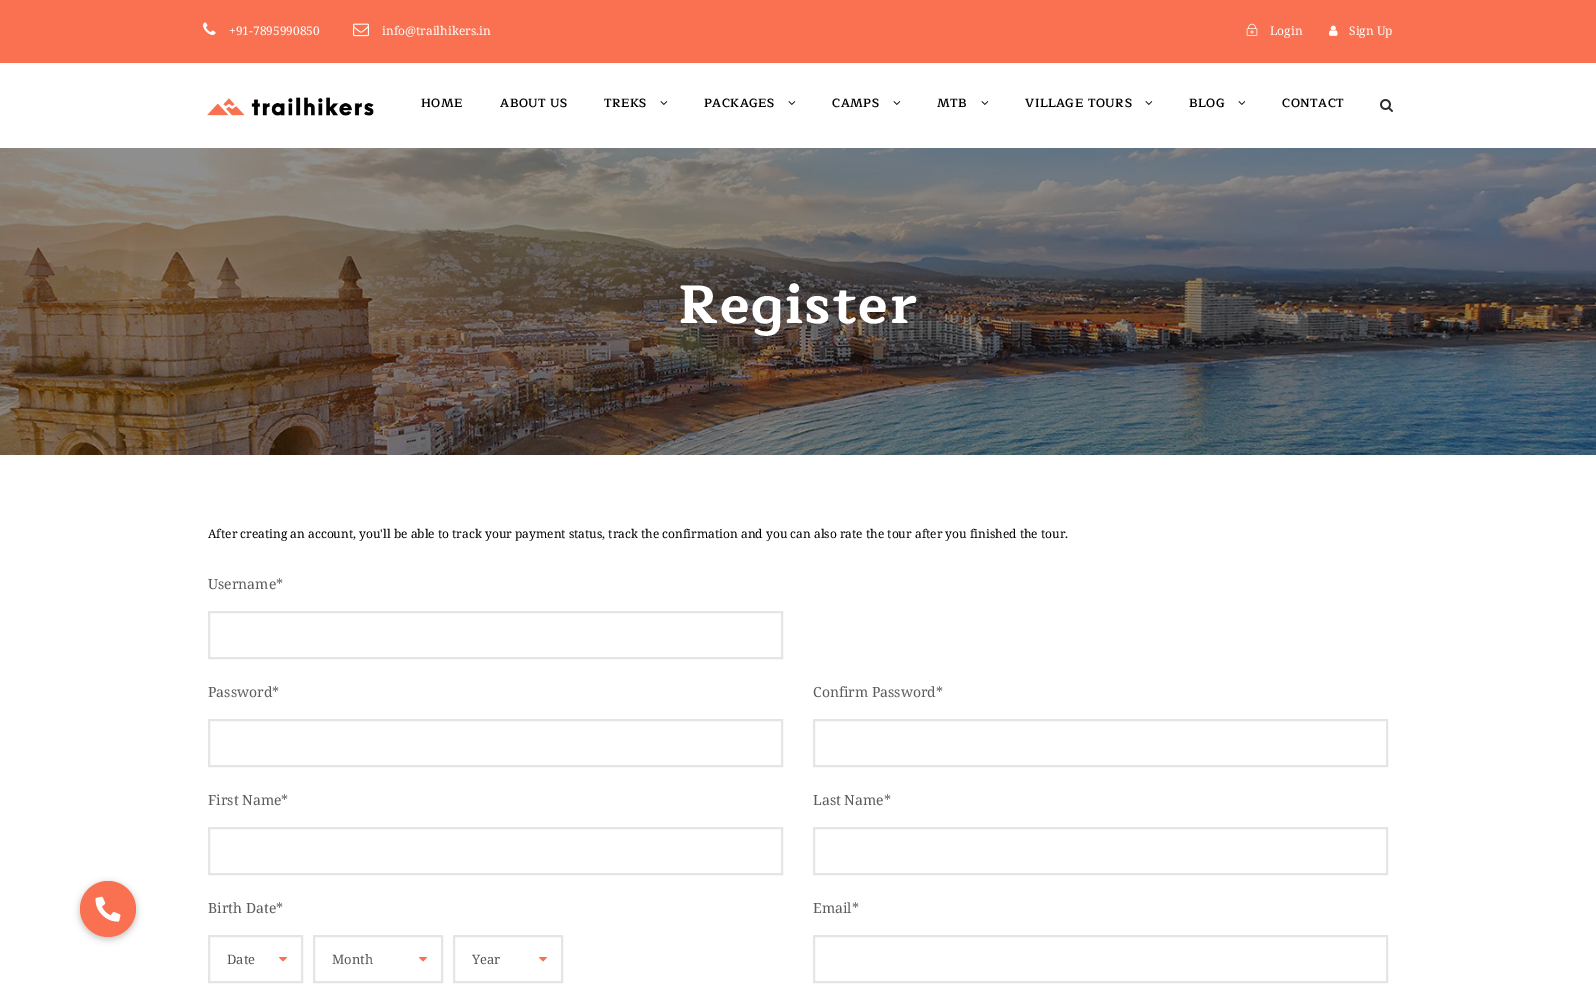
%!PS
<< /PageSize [1596 986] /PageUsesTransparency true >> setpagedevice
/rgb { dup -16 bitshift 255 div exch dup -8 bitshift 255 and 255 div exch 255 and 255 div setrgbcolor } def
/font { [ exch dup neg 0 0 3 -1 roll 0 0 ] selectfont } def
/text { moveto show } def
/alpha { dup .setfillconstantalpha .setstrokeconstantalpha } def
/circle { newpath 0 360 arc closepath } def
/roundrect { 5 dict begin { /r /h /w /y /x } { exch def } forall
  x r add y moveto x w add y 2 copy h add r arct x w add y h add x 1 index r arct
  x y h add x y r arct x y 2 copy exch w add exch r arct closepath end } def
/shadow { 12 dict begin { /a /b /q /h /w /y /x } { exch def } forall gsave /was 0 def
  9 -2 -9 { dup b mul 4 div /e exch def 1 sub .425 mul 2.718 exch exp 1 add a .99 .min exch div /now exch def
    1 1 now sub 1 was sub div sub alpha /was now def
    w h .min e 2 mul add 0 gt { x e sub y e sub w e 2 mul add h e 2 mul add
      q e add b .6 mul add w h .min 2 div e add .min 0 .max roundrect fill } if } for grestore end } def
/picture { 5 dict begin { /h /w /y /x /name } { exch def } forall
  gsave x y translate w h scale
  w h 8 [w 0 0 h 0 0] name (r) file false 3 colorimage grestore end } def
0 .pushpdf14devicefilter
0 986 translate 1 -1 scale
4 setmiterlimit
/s1 { /NotoSerif-Regular 12 font 16#FFFFFF rgb } def
/s2 { /NotoSerif-Regular 12 font 16#000000 rgb } def
/s3 { /NotoSerif-Regular 14 font 16#5C5C5C rgb } def
/s4 { /NotoSerif-Regular 13 font 16#545454 rgb } def
16#FFFFFF rgb
0 0 1596 986 rectfill
16#000000 rgb
79 882 58 58 29 3 0.2 shadow
16#F97150 rgb
108 909 28 circle fill
(pic1.raw) 95 896 26 26 picture
0 0 1596 63 rectfill
(pic2.raw) 203 22 13 13 picture
s1
(+91-7895990850) 229 35 text
(pic3.raw) 353 23 16 14 picture
(info@trailhikers.in) 382 35 text
(pic4.raw) 1246 23 12 13 picture
(Login) 1270 35 text
(pic5.raw) 1329 25 9 11 picture
(Sign Up) 1349 35 text
(pic6.raw) 207 97 167 19 picture
/Maitree-SemiBold 12 font
16#000000 rgb
421 107 moveto 0.5 0 (HOME) ashow
500 107 moveto 0.5 0 (ABOUT US) ashow
604 107 moveto 0.5 0 (TREKS) ashow
(pic7.raw) 660 101 8 4 picture
704 107 moveto 0.5 0 (PACKAGES) ashow
(pic7.raw) 788 101 8 4 picture
832 107 moveto 0.5 0 (CAMPS) ashow
(pic7.raw) 893 101 8 4 picture
937 107 moveto 0.5 0 (MTB) ashow
(pic7.raw) 981 101 8 4 picture
1025 107 moveto 0.5 0 (VILLAGE TOURS) ashow
(pic7.raw) 1145 101 8 4 picture
1189 107 moveto 0.5 0 (BLOG) ashow
(pic7.raw) 1238 101 8 4 picture
1282 107 moveto 0.5 0 (CONTACT) ashow
(pic8.raw) 1380 99 13 13 picture
(pic9.raw) 0 148 1596 307 picture
/Maitree-Bold 54 font
16#FFFFFF rgb
678 323 moveto 2 0 (Register) ashow
s2
(After creating an account, you'll be able to track your payment status, track the confirmation and you can also rate the tour after you finished the tour.) 208 538 text
s3
(Username*) 208 589 text
16#E5E5E5 rgb
2 setlinewidth
209 612 573 46 rectstroke
s3
(Password*) 208 697 text
16#E5E5E5 rgb
209 720 573 46 rectstroke
s3
(Confirm Password*) 813 697 text
16#E5E5E5 rgb
814 720 573 46 rectstroke
s3
(First Name*) 208 805 text
16#E5E5E5 rgb
209 828 573 46 rectstroke
s3
(Last Name*) 813 805 text
16#E5E5E5 rgb
814 828 573 46 rectstroke
s3
(Birth Date*) 208 913 text
16#E5E5E5 rgb
209 936 93 46 rectstroke
s4
(Date) 227 964 text
(pic10.raw) 279 957 8 5 picture
16#E5E5E5 rgb
314 936 128 46 rectstroke
s4
(Month) 332 964 text
(pic10.raw) 419 957 8 5 picture
16#E5E5E5 rgb
454 936 108 46 rectstroke
s4
(Year) 472 964 text
(pic10.raw) 539 957 8 5 picture
s3
(Email*) 813 913 text
16#E5E5E5 rgb
814 936 573 46 rectstroke
.poppdf14devicefilter showpage
